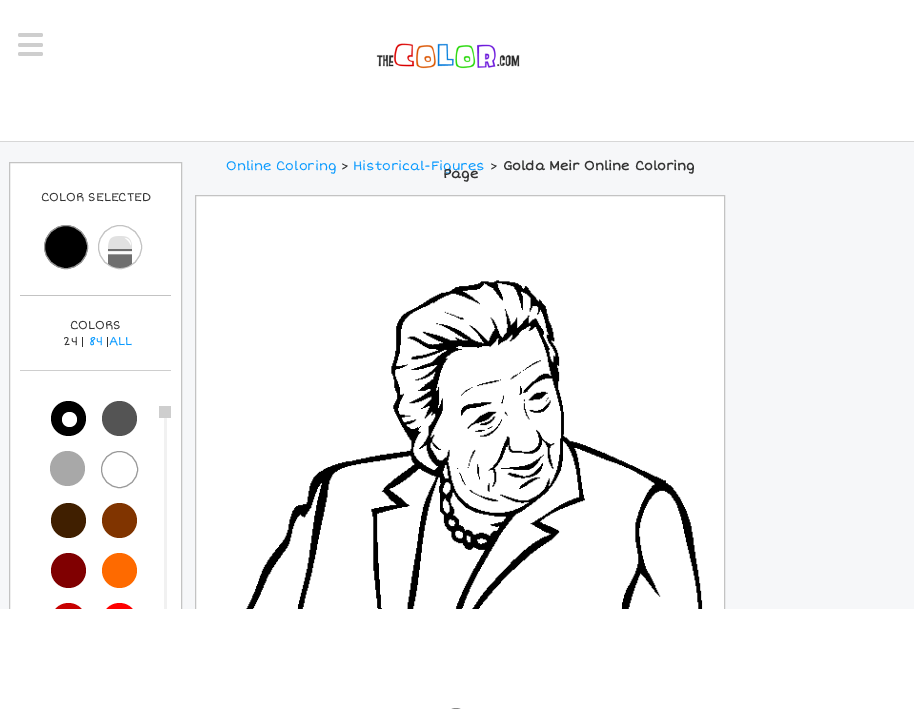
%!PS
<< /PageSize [914 709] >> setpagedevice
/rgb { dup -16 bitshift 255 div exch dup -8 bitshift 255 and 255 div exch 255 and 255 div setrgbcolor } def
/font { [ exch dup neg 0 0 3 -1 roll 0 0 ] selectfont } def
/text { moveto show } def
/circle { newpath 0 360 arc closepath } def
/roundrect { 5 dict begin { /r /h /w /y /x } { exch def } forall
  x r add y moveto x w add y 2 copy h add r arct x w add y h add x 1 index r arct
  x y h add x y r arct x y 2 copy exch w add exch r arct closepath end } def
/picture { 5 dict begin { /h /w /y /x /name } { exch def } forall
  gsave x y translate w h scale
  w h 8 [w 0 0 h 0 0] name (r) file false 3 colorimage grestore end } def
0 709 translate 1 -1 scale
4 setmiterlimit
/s1 { /ShortStack-Regular 13 font 16#099AFF rgb } def
/s2 { /ShortStack-Regular 13 font 16#333333 rgb } def
/s3 { /ShortStack-Bold 13 font 16#333333 rgb } def
/s4 { /ShortStack-Regular 12 font 16#333333 rgb } def
/s5 { /ShortStack-Regular 12 font 16#099AFF rgb } def
16#F6F7F9 rgb
0 0 914 709 rectfill
16#FFFFFF rgb
0 0 914 141 rectfill
16#D7D7D7 rgb
0 141 914 1 rectfill
16#CECECE rgb
18 33 25 4 2 roundrect fill
18 43 25 4 2 roundrect fill
18 52 25 4 2 roundrect fill
(pic1.raw) 376 43 144 26 picture
s1
(Online Coloring) 226 170 text
s2
(>) 341 170 text
s1
(Historical-Figures) 353 170 text
s2
(>) 490 170 text
s3
(Golda Meir Online Coloring) 503 170 text
(Page) 443 178 text
16#FFFFFF rgb
196 196 528 413 rectfill
16#C3C3C3 rgb
195.5 195.5 529 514 rectstroke
(pic2.raw) 215 280 489 329 picture
16#FFFFFF rgb
10 163 171 446 rectfill
16#C3C3C3 rgb
9.5 162.5 172 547 rectstroke
s4
(COLOR SELECTED) 41 201 text
16#C3C3C3 rgb
20 295 151 1 rectfill
16#000000 rgb
66 247 21.5 circle gsave fill grestore
16#999999 rgb
stroke
16#C3C3C3 rgb
120 247 21.5 circle stroke
(pic3.raw) 108 236 24 32 picture
16#CECECE rgb
20 370 151 1 rectfill
s4
(COLORS) 70 329 text
(24) 63 345 text
82 337 1 10 rectfill
s5
(84) 89 345 text
16#333333 rgb
107 337 1 10 rectfill
s5
(ALL) 109 345 text
16#000000 rgb
68.5 418.5 17.5 circle fill
16#FFFFFF rgb
69.5 419.5 7.5 circle fill
16#545454 rgb
119.5 418.5 17.5 circle fill
16#A8A8A8 rgb
67.5 468.5 17.5 circle fill
16#999999 rgb
119.5 469.5 18 circle stroke
16#401F00 rgb
68.5 520.5 17.5 circle fill
16#803400 rgb
119.5 520.5 17.5 circle fill
16#800001 rgb
68.5 570.5 17.5 circle fill
16#FE6A00 rgb
119.5 570.5 17.5 circle fill
16#C70000 rgb
68.5 620.5 17.5 circle fill
16#FE0000 rgb
119.5 620.5 17.5 circle fill
16#F1F1F1 rgb
164 418 3 191 rectfill
16#CECECE rgb
159 406 12 12 rectfill
16#FFFFFF rgb
0 609 914 100 rectfill
16#F9F9F9 rgb
445.5 708.5 21 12 10.5 roundrect stroke
16#888888 rgb
445.5 708.5 21 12 10.5 roundrect stroke
showpage
